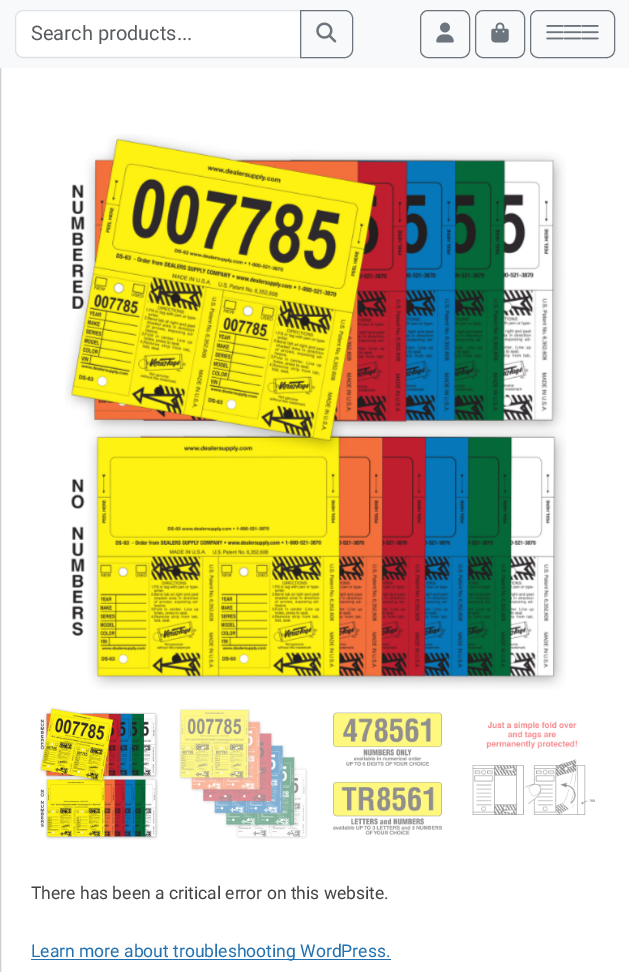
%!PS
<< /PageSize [629 972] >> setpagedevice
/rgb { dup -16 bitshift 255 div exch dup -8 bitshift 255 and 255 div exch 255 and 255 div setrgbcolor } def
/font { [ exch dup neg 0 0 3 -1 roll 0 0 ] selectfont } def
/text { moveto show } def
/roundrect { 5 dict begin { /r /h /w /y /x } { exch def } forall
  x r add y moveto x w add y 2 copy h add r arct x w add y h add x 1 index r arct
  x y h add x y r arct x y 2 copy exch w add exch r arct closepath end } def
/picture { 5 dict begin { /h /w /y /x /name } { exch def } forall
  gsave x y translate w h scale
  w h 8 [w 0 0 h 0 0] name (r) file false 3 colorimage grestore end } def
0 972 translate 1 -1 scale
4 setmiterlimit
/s1 { /Roboto-Regular 20 font 16#595C5F rgb } def
/s2 { /Roboto-Regular 17.5 font 16#444444 rgb } def
/s3 { /Roboto-Regular 17.5 font 16#2271B1 rgb } def
16#FFFFFF rgb
0 0 629 972 rectfill
16#CCD0D4 rgb
0.5 63.5 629 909 rectstroke
16#F8F9FA rgb
0 0 629 68 rectfill
16#FFFFFF rgb
22 11 moveto 300 11 lineto 300 56 lineto 22 56 lineto 18.5 56 16 53.5 16 50 curveto 16 17 lineto 16 13.5 18.5 11 22 11 curveto closepath fill
16#DEE2E6 rgb
23 10.5 moveto 300.5 10.5 lineto 300.5 57.5 lineto 23 57.5 lineto 19 57.5 15.5 54 15.5 50 curveto 15.5 18 lineto 15.5 14 19 10.5 23 10.5 curveto closepath stroke
s1
(Search products...) 31 40 text
16#6C757D rgb
300.5 10.5 moveto 345 10.5 lineto 349 10.5 352.5 14 352.5 18 curveto 352.5 50 lineto 352.5 54 349 57.5 345 57.5 curveto 300.5 57.5 lineto closepath stroke
(pic1.raw) 316 22 21 21 picture
420.5 10.5 49 47 7.5 roundrect stroke
(pic2.raw) 436 22 18 21 picture
475.5 10.5 49 47 7.5 roundrect stroke
(pic3.raw) 491 22 18 21 picture
530.5 10.5 84 47 7.5 roundrect stroke
(pic4.raw) 546 25 18 15 picture
(pic5.raw) 563 25 36 15 picture
(pic6.raw) 65 134 501 556 picture
(pic7.raw) 39 707 120 133 picture
(pic8.raw) 179 708 129 131 picture
(pic9.raw) 333 712 109 123 picture
(pic10.raw) 472 721 123 94 picture
s2
(There has been a critical error on this website.) 31 899 text
16#2271B1 rgb
31 959 360 1 rectfill
(Learn more about troubleshooting WordPress.) 31 957 text
showpage
